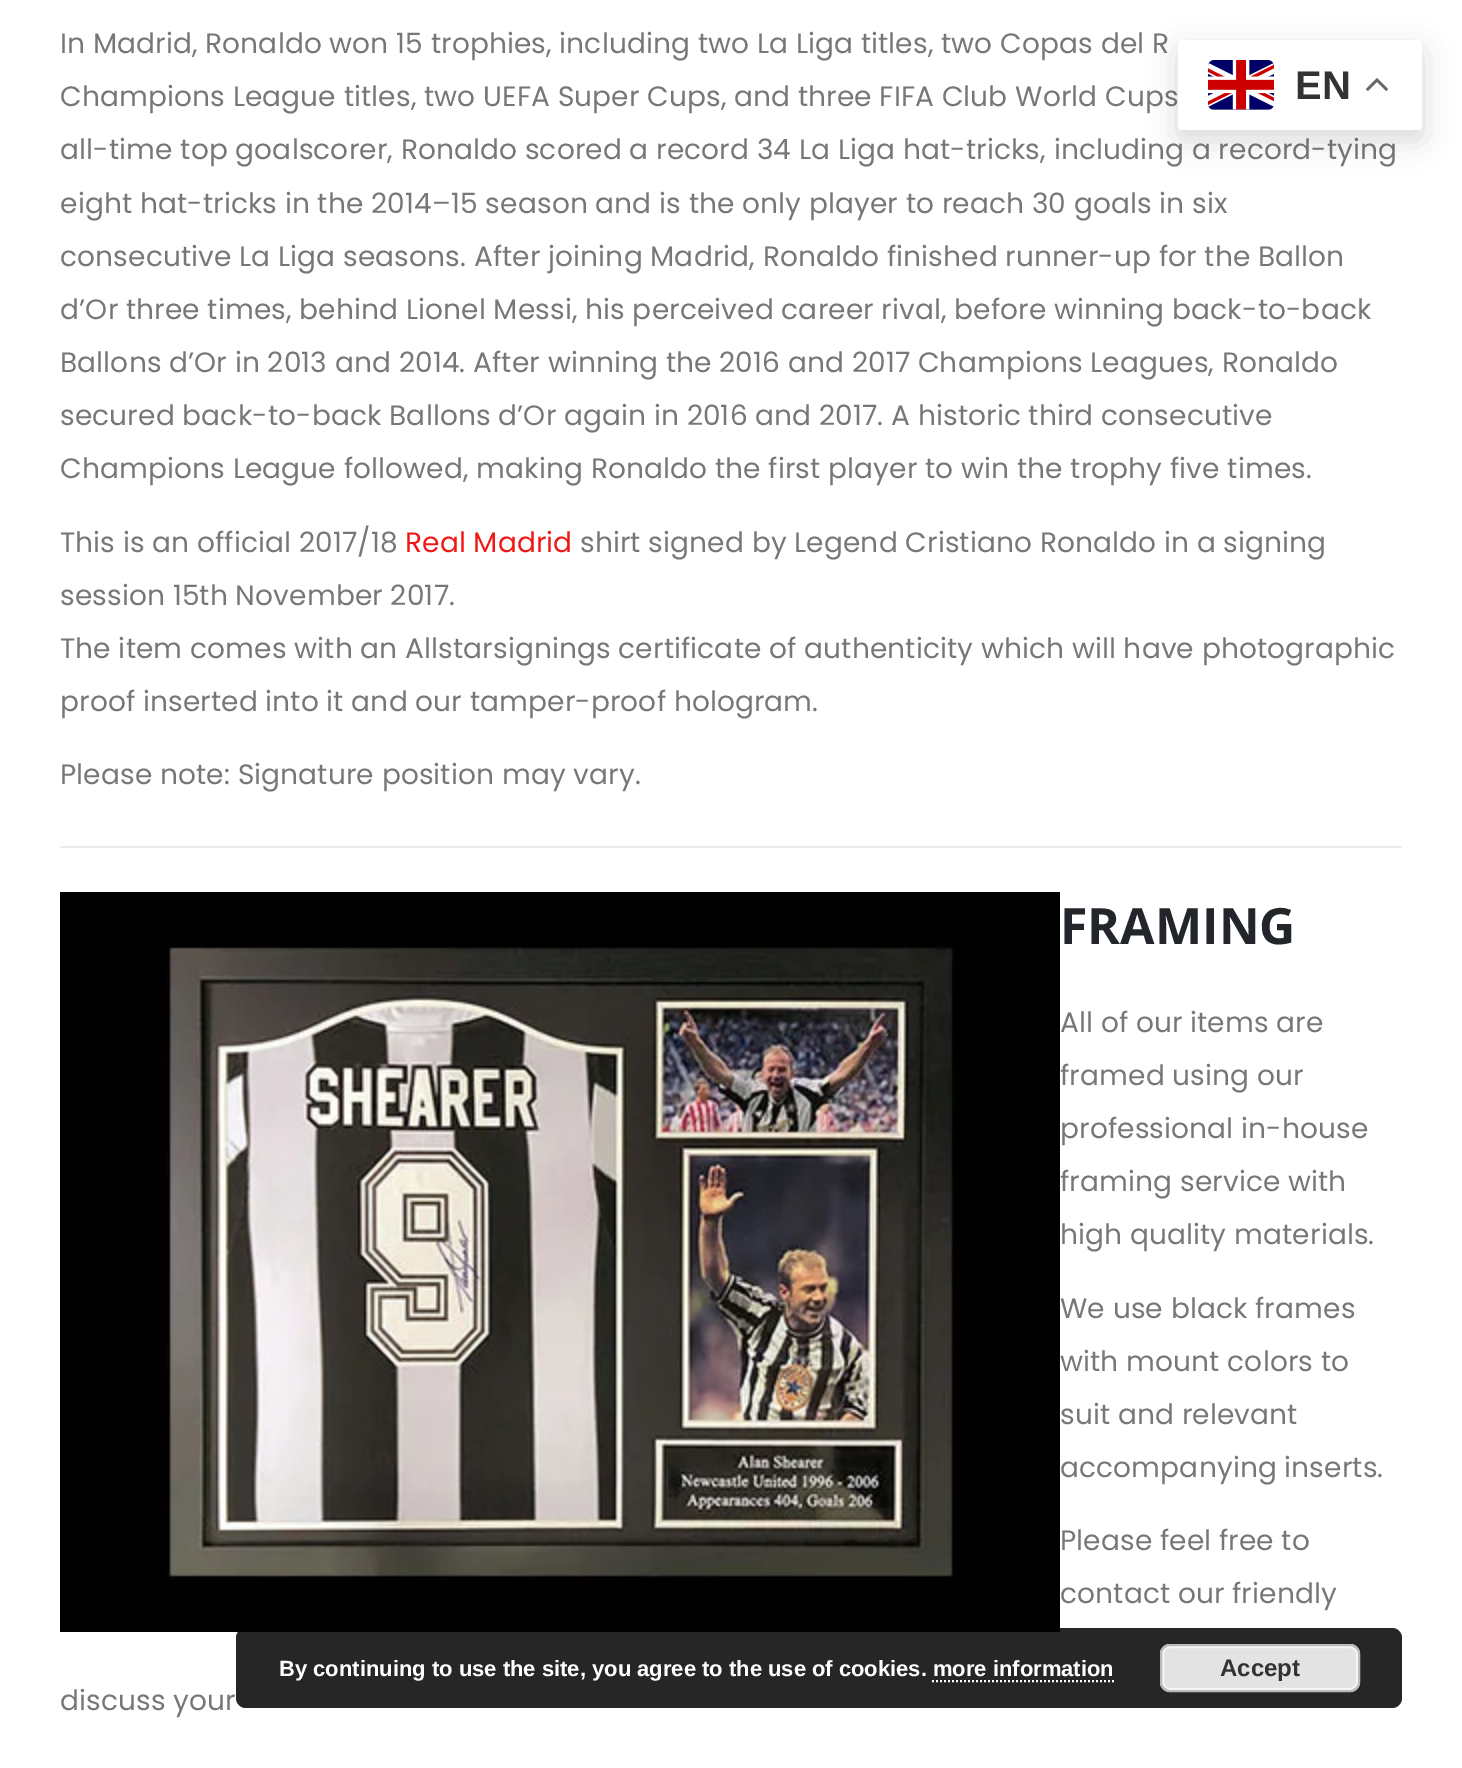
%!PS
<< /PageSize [1462 1768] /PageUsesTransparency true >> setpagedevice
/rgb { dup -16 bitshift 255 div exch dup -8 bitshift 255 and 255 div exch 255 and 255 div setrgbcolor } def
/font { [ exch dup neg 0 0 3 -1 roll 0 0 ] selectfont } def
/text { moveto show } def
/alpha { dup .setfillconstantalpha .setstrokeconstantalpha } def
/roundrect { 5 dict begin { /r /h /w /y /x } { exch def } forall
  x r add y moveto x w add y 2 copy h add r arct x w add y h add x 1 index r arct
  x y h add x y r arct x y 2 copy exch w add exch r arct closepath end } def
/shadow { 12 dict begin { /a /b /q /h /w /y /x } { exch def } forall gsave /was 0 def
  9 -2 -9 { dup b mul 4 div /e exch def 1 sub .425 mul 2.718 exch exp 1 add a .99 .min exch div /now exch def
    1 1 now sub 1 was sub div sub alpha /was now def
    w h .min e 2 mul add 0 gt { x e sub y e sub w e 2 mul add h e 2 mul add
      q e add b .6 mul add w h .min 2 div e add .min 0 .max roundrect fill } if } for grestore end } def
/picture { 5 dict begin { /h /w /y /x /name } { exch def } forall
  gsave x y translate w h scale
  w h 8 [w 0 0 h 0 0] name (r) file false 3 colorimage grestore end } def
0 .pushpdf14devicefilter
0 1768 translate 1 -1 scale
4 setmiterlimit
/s1 { /OpenSans-Bold 50 font 16#222529 rgb } def
/s2 { /LiberationSans-Bold 40 font 16#333333 rgb } def
/s3 { /LiberationSans-Bold 22 font 16#FFFFFF rgb } def
/s4 { /LiberationSans-Bold 24 font 16#333333 rgb } def
16#FFFFFF rgb
0 0 1462 1768 rectfill
/Poppins-Regular 28 font
16#777777 rgb
60 53 moveto 0.15 0 (In Madrid, Ronaldo won 15 trophies, including two La Liga titles, two Copas del R) ashow
60 106 moveto 0.15 0 (Champions League titles, two UEFA Super Cups, and three FIFA Club World Cups) ashow
60 159 moveto 0.15 0 (all-time top goalscorer, Ronaldo scored a record 34 La Liga hat-tricks, including a record-tying) ashow
60 213 moveto 0.15 0 (eight hat-tricks in the 2014–15 season and is the only player to reach 30 goals in six) ashow
60 266 moveto 0.15 0 (consecutive La Liga seasons. After joining Madrid, Ronaldo finished runner-up for the Ballon) ashow
60 319 moveto 0.15 0 (d’Or three times, behind Lionel Messi, his perceived career rival, before winning back-to-back) ashow
60 372 moveto 0.15 0 (Ballons d’Or in 2013 and 2014. After winning the 2016 and 2017 Champions Leagues, Ronaldo) ashow
60 425 moveto 0.15 0 (secured back-to-back Ballons d’Or again in 2016 and 2017. A historic third consecutive) ashow
60 478 moveto 0.15 0 (Champions League followed, making Ronaldo the first player to win the trophy five times.) ashow
60 552 moveto 0.15 0 (This is an official 2017/18) ashow
16#F01715 rgb
405 552 moveto 0.15 0 (Real Madrid) ashow
16#777777 rgb
580 552 moveto 0.15 0 (shirt signed by Legend Cristiano Ronaldo in a signing) ashow
60 605 moveto 0.15 0 (session 15th November 2017.) ashow
60 658 moveto 0.15 0 (The item comes with an Allstarsignings certificate of authenticity which will have photographic) ashow
60 711 moveto 0.15 0 (proof inserted into it and our tamper-proof hologram.) ashow
60 784 moveto 0.15 0 (Please note: Signature position may vary.) ashow
16#EBEBEB rgb
60 846 1342 2 rectfill
(pic1.raw) 60 892 1000 740 picture
s1
(FRAMING) 1060 944 text
/Poppins-Regular 28 font
16#777777 rgb
1060 1032 moveto 0.15 0 (All of our items are) ashow
1060 1085 moveto 0.15 0 (framed using our) ashow
1060 1138 moveto 0.15 0 (professional in-house) ashow
1060 1191 moveto 0.15 0 (framing service with) ashow
1060 1244 moveto 0.15 0 (high quality materials.) ashow
1060 1318 moveto 0.15 0 (We use black frames) ashow
1060 1371 moveto 0.15 0 (with mount colors to) ashow
1060 1424 moveto 0.15 0 (suit and relevant) ashow
1060 1477 moveto 0.15 0 (accompanying inserts.) ashow
1060 1550 moveto 0.15 0 (Please feel free to) ashow
1060 1603 moveto 0.15 0 (contact our friendly) ashow
60 1710 moveto 0.15 0 (discuss your) ashow
16#000000 rgb
1178 50 244 90 4 15 0.15 shadow
16#FFFFFF rgb
1178 40 244 90 4 roundrect fill
(pic2.raw) 1208 60 66 50 picture
s2
(EN) 1295 99 text
(pic3.raw) 1366 78 22 13 picture
0.85 alpha
16#000000 rgb
236 1628 1166 80 10 roundrect fill
1 alpha
s3
(By continuing to use the site, you agree to the use of cookies. more information) 279 1676 text
16#E3E3E3 rgb
1160 1644 200 48 10 roundrect fill
16#F6F6F6 rgb
2 setlinewidth
1163 1647 194 42 7 roundrect stroke
16#BBBBBB rgb
1161 1645 198 46 9 roundrect stroke
s4
(Accept) 1220 1676 text
16#FFFFFF rgb
[2 2] 0 setdash
932 1681 moveto 1114 1681 lineto stroke
.poppdf14devicefilter showpage
